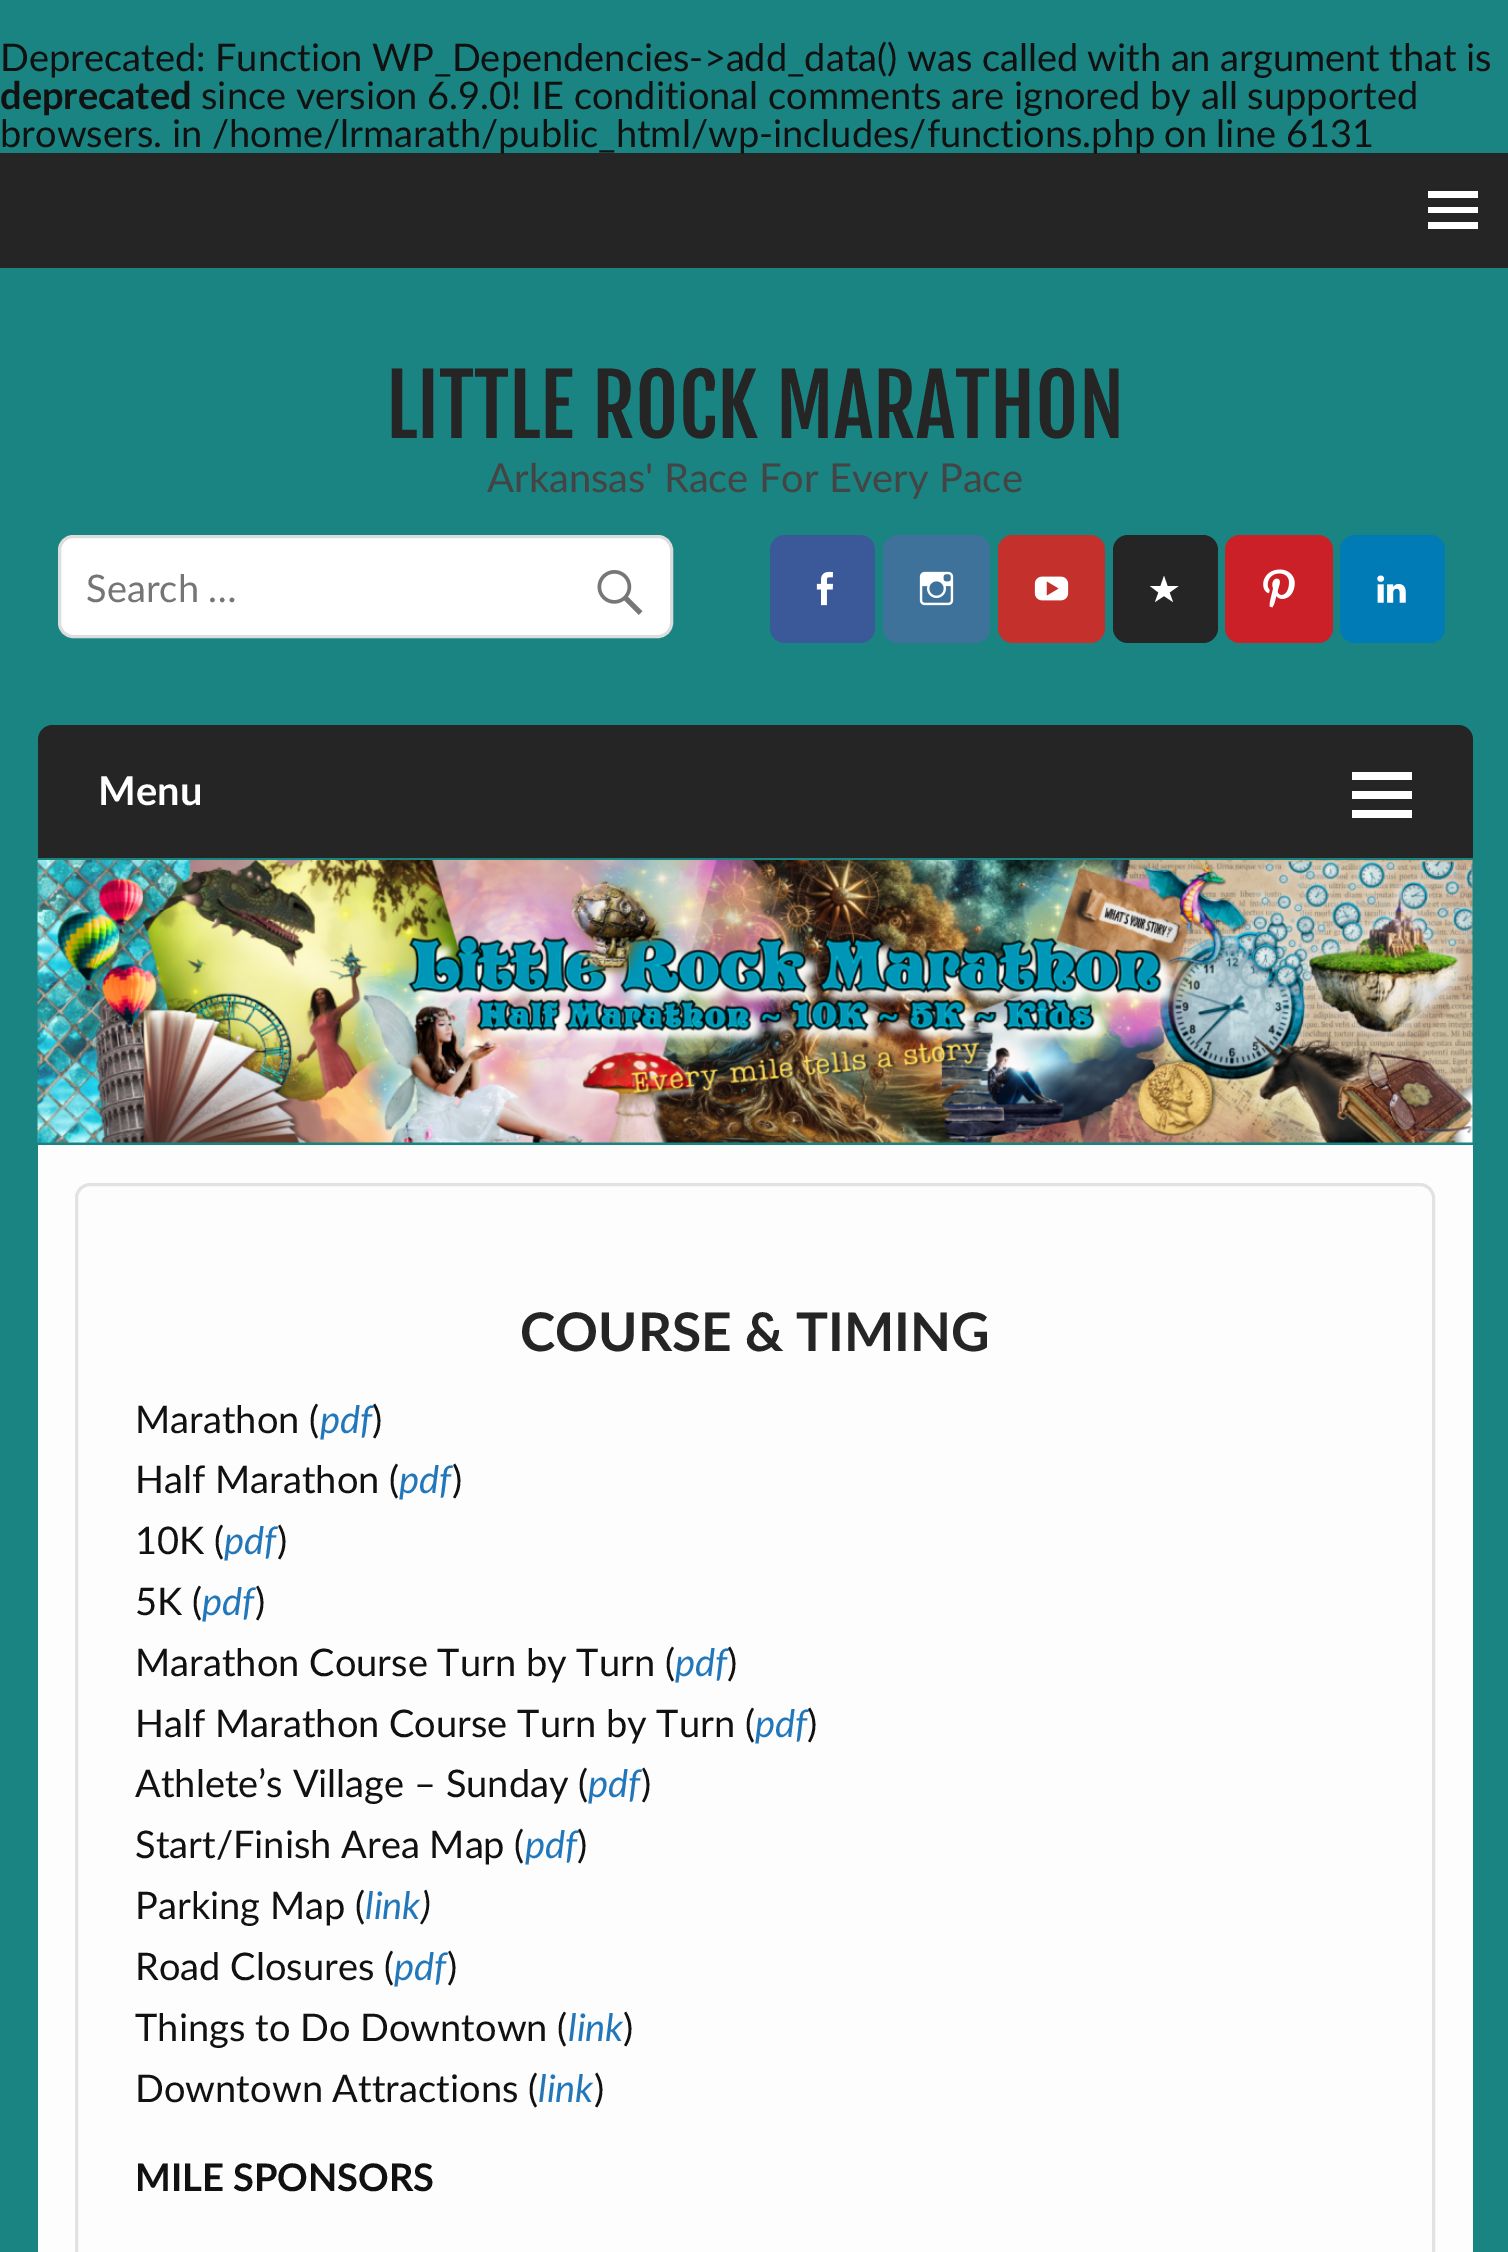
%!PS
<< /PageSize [1508 2252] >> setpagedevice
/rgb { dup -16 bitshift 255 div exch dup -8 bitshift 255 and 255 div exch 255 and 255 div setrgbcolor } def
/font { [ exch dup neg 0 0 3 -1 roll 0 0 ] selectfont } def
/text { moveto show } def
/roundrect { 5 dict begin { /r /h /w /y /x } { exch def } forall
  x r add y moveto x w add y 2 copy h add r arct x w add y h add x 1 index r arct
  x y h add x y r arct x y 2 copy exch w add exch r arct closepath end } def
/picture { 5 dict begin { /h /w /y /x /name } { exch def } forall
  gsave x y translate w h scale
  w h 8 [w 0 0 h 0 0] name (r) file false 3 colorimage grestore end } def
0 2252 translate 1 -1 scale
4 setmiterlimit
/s1 { /Lato-Regular 38 font 16#111111 rgb } def
/s2 { /Lato-Bold 38 font 16#111111 rgb } def
/s3 { /FjallaOne-Regular 83.5 font 16#252525 rgb } def
/s4 { /Lato-Regular 39.9 font 16#444444 rgb } def
/s5 { /Lato-Regular 38 font 16#757575 rgb } def
/s6 { /Lato-Bold 39.9 font 16#FFFFFF rgb } def
/s7 { /Lato-Bold 53.25 font 16#252525 rgb } def
/s8 { /Lato-Italic 38 font 16#2277BB rgb } def
/s9 { /Lato-Italic 38 font 16#111111 rgb } def
16#198482 rgb
0 0 1508 2252 rectfill
s1
(Deprecated:) 0 71 text
215 71 moveto -0.25 0 32 (Function WP_Dependencies->add_data\(\) was called with an argument that is) widthshow
s2
(deprecated) 0 109 text
s1
(since version 6.9.0! IE conditional comments are ignored by all supported) 201 109 text
16#252525 rgb
0 153 1508 115 rectfill
s1
(browsers. in /home/lrmarath/public_html/wp-includes/functions.php) 0 147 text
(on line 6131) 1164 147 text
16#FFFFFF rgb
1428 229 moveto 1428 222 lineto 1478 222 lineto 1478 229 lineto closepath 1428 191 moveto 1478 191 lineto 1478 198 lineto 1428 198 lineto closepath 1428 213 moveto 1428 207 lineto 1478 207 lineto 1478 213 lineto closepath fill
s3
(LITTLE ROCK MARATHON) 386 438 text
s4
(Arkansas' Race For Every Pace) 487 492 text
16#FFFFFF rgb
59.5 536.5 612 100 13.5 roundrect gsave fill grestore
16#DDDDDD rgb
3 setlinewidth
stroke
s5
(Search …) 86 602 text
(pic1.raw) 597 570 46 45 picture
16#3B5998 rgb
770 535 105 108 15 roundrect fill
(pic2.raw) 816 571 17 35 picture
16#3F729B rgb
883 535 107 108 15 roundrect fill
(pic3.raw) 919 571 35 35 picture
16#C4302B rgb
998 535 107 108 15 roundrect fill
(pic4.raw) 1034 576 35 25 picture
16#252525 rgb
1113 535 105 108 15 roundrect fill
16#FFFFFF rgb
1178.5 586 moveto 1169.5 592.5 lineto 1173 602 lineto 1164 596 lineto 1155 602 lineto 1158.5 592.5 lineto 1150 586 lineto 1160.5 586 lineto 1164 576 lineto 1167.5 586 lineto closepath fill
16#CB2027 rgb
1225 535 108 108 15 roundrect fill
(pic5.raw) 1263 569 32 39 picture
16#007BB6 rgb
1340 535 105 108 15 roundrect fill
(pic6.raw) 1377 575 29 28 picture
16#252525 rgb
53 725 moveto 1458 725 lineto 1466.5 725 1473 731.5 1473 740 curveto 1473 858 lineto 38 858 lineto 38 740 lineto 38 731.5 44.5 725 53 725 curveto closepath fill
s6
(Menu) 98 805 text
1352 818 moveto 1352 810 lineto 1412 810 lineto 1412 818 lineto closepath 1352 772 moveto 1412 772 lineto 1412 780 lineto 1352 780 lineto closepath 1352 799 moveto 1352 791 lineto 1412 791 lineto 1412 799 lineto closepath fill
(pic7.raw) 37 860 1436 283 picture
16#FDFDFD rgb
38 1145 1435 1107 rectfill
16#E2E2E2 rgb
76.5 1184.5 1357 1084 13.5 roundrect stroke
s7
(COURSE & TIMING) 520 1351 text
s1
(Marathon \() 135 1433 text
s8
(pdf) 320 1433 text
s1
(\)) 372 1433 text
(Half Marathon \() 135 1493 text
s8
(pdf) 399 1493 text
s1
(\)) 452 1493 text
(10K \() 135 1554 text
s8
(pdf) 224 1554 text
s1
(\)) 277 1554 text
(5K \() 135 1615 text
s8
(pdf) 202 1615 text
s1
(\)) 255 1615 text
(Marathon Course Turn by Turn \() 135 1676 text
s8
(pdf) 675 1676 text
s1
(\)) 727 1676 text
(Half Marathon Course Turn by Turn \() 135 1737 text
s8
(pdf) 755 1737 text
s1
(\)) 807 1737 text
(Athlete’s Village – Sunday \() 135 1797 text
s8
(pdf) 588 1797 text
s1
(\)) 641 1797 text
(Start/Finish Area Map \() 135 1858 text
s8
(pdf) 525 1858 text
s1
(\)) 577 1858 text
(Parking Map \() 135 1919 text
s8
(link) 365 1919 text
s9
(\)) 421 1919 text
s1
(Road Closures \() 135 1980 text
s8
(pdf) 394 1980 text
s1
(\)) 447 1980 text
(Things to Do Downtown \() 135 2041 text
s8
(link) 568 2041 text
s1
(\)) 623 2041 text
(Downtown Attractions \() 135 2102 text
s8
(link) 538 2102 text
s1
(\)) 594 2102 text
s2
(MILE SPONSORS) 135 2191 text
showpage
